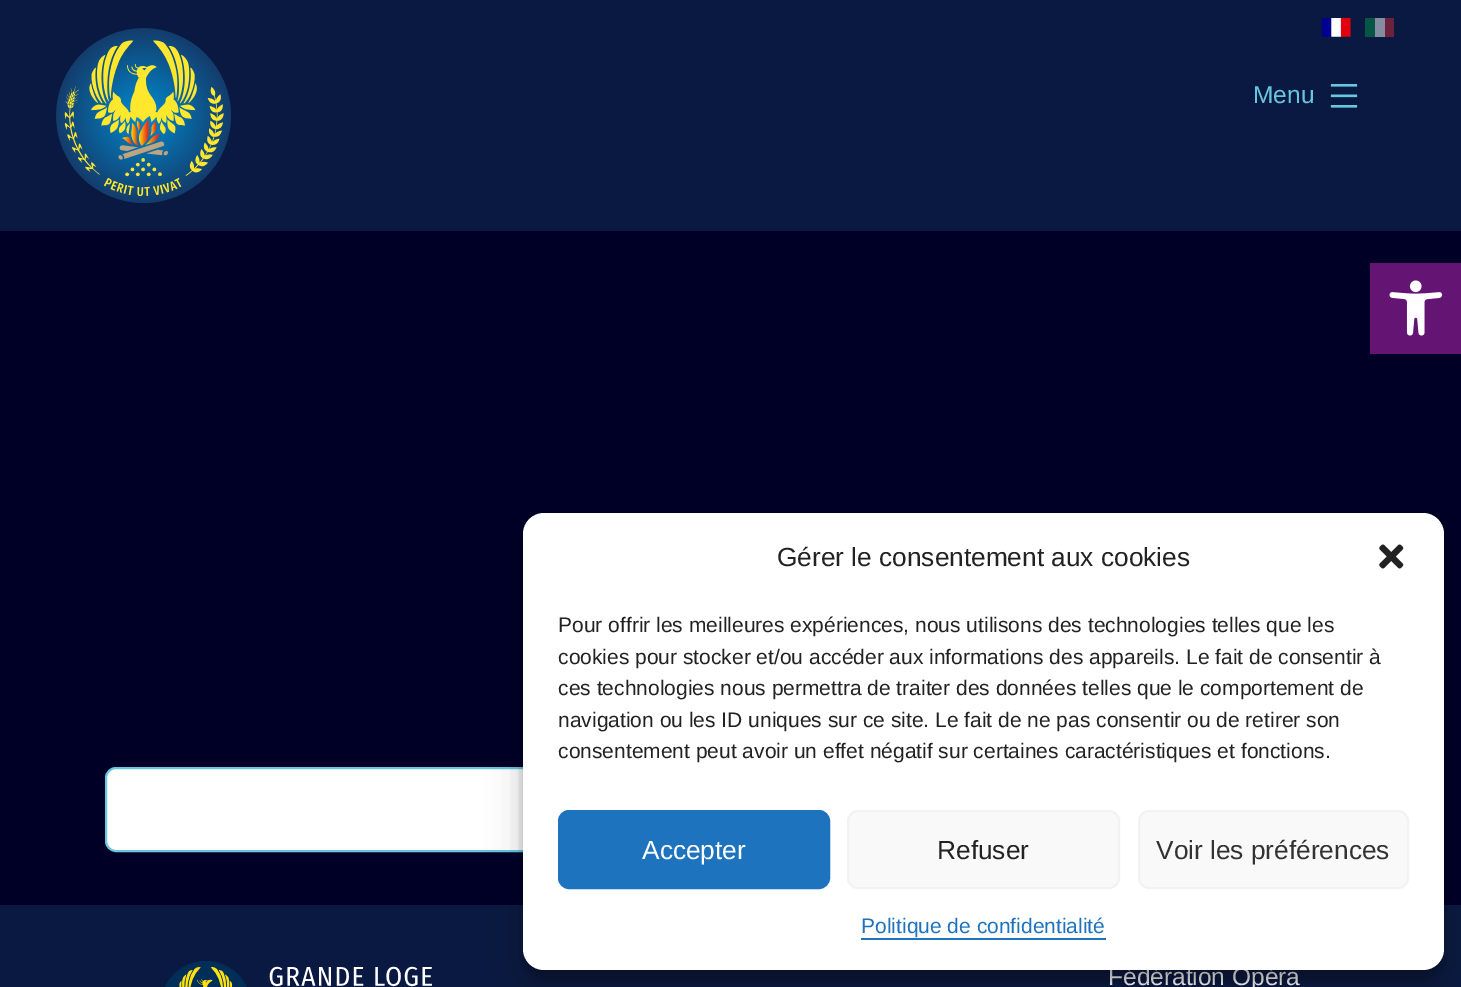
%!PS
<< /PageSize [1461 987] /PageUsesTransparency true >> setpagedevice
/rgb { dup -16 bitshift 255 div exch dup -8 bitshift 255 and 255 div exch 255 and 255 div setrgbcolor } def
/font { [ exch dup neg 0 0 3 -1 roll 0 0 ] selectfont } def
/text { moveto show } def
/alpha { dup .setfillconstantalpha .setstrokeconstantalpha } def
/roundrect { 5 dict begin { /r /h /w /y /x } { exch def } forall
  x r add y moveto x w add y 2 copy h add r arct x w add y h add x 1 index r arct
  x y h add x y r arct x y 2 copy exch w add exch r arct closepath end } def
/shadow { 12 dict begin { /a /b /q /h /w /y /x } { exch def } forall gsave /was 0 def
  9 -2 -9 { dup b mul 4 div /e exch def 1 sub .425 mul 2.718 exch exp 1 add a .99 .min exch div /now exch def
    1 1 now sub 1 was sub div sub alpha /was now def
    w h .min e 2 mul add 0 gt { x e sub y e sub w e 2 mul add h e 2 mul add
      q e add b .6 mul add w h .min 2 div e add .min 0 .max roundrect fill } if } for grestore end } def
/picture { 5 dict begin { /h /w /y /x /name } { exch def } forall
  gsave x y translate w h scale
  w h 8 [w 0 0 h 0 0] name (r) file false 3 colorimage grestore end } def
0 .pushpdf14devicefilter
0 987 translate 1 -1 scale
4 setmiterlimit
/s1 { /LiberationSans-Regular 24.5 font 16#68C6DF rgb } def
/s2 { /LiberationSans-Regular 24.5 font 16#FFFFFF rgb } def
/s3 { /LiberationSans-Regular 26.25 font 16#222222 rgb } def
/s4 { /LiberationSans-Regular 21 font 16#222222 rgb } def
/s5 { /LiberationSans-Regular 26.25 font 16#FFFFFF rgb } def
/s6 { /LiberationSans-Regular 26.25 font 16#333333 rgb } def
/s7 { /LiberationSans-Regular 21 font 16#1E73BE rgb } def
16#0A1941 rgb
0 0 1461 987 rectfill
(pic1.raw) 56 28 175 175 picture
s1
(Menu) 1253 103 text
(pic2.raw) 1330 84 28 24 picture
(pic3.raw) 1321 18 30 19 picture
16#055644 rgb
1365 18 10 19 rectfill
16#858CA0 rgb
1375 18 10 19 rectfill
16#6C223C rgb
1385 18 9 19 rectfill
16#000027 rgb
0 231 1461 674 rectfill
16#FFFFFF rgb
106 768 987 83 10 roundrect gsave fill grestore
16#68C6DF rgb
2 setlinewidth
stroke
(pic4.raw) 165 961 267 26 picture
s2
(Fédération Opéra) 1108 985 text
16#641472 rgb
1370 263 91 91 rectfill
(pic5.raw) 1389 280 54 56 picture
16#000000 rgb
523 523 921 457 21 5 0.23 shadow
523 530 921 457 21 17.5 0.19 shadow
16#FFFFFF rgb
523 513 921 457 21 roundrect fill
s3
(Gérer le consentement aux cookies) 777 566 text
(pic6.raw) 1379 544 25 25 picture
s4
(Pour offrir les meilleures expériences, nous utilisons des technologies telles que les) 558 632 text
(cookies pour stocker et/ou accéder aux informations des appareils. Le fait de consentir à) 558 664 text
(ces technologies nous permettra de traiter des données telles que le comportement de) 558 695 text
(navigation ou les ID uniques sur ce site. Le fait de ne pas consentir ou de retirer son) 558 727 text
(consentement peut avoir un effet négatif sur certaines caractéristiques et fonctions.) 558 758 text
16#1E73BE rgb
559 811 270 77 10 roundrect gsave fill grestore
stroke
s5
(Accepter) 642 859 text
16#F9F9F9 rgb
848 811 271 77 10 roundrect gsave fill grestore
16#F2F2F2 rgb
stroke
s3
(Refuser) 937 859 text
16#F9F9F9 rgb
1139 811 269 77 10 roundrect gsave fill grestore
16#F2F2F2 rgb
stroke
s6
(Voir les préférences) 1156 859 text
s7
(Politique de confidentialité) 861 933 text
861 938 245 2 rectfill
.poppdf14devicefilter showpage
